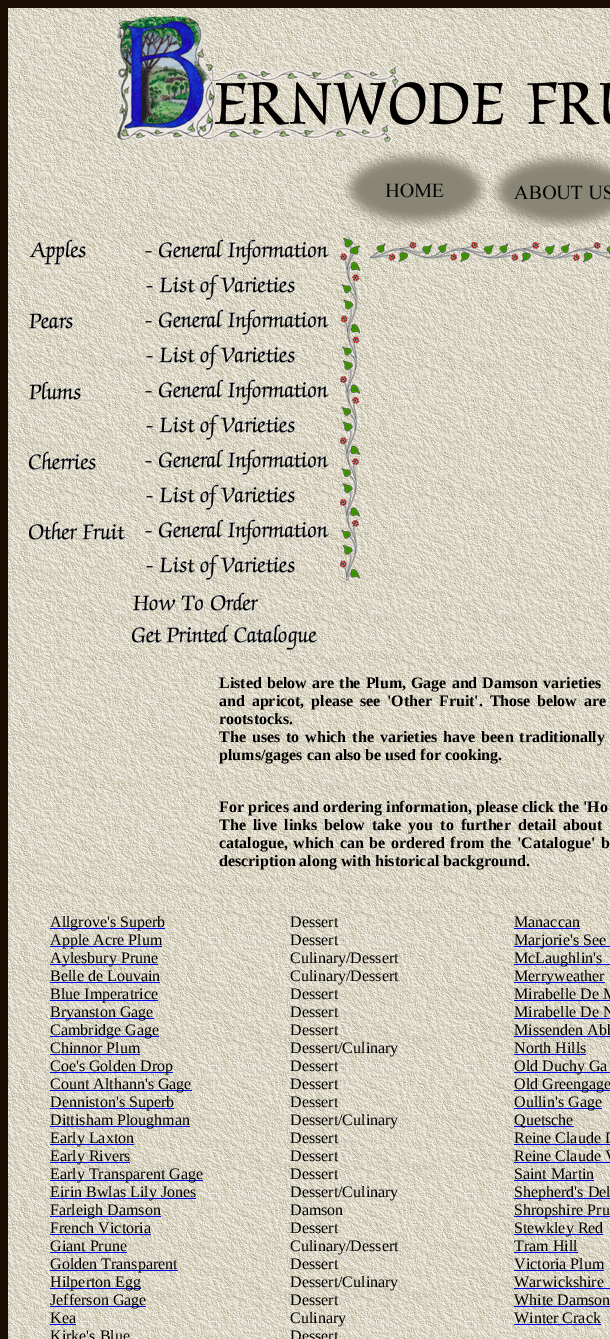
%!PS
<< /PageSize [610 1339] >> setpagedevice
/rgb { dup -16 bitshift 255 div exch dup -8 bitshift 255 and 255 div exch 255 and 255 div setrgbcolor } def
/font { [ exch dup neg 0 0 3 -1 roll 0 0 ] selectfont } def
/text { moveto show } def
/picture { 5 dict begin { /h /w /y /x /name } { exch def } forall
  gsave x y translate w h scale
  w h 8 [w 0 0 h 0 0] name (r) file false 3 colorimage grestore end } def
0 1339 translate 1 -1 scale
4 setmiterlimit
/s1 { /LiberationSerif-Bold 16 font 16#000000 rgb } def
/s2 { /LiberationSerif-Regular 16 font 16#000000 rgb } def
16#1A0F02 rgb
0 0 610 1339 rectfill
(pic1.raw) 8 8 602 225 picture
(pic2.raw) 111 14 499 128 picture
(pic3.raw) 343 151 144 77 picture
(pic4.raw) 491 152 119 76 picture
(pic5.raw) 8 233 602 422 picture
(pic6.raw) 29 239 57 26 picture
(pic7.raw) 145 239 184 26 picture
(pic8.raw) 340 238 20 343 picture
(pic9.raw) 367 236 243 346 picture
(pic10.raw) 370 242 240 20 picture
(pic11.raw) 146 274 149 26 picture
(pic12.raw) 29 313 44 16 picture
(pic13.raw) 145 309 184 26 picture
(pic14.raw) 146 344 149 26 picture
(pic15.raw) 29 381 52 19 picture
(pic16.raw) 145 379 184 26 picture
(pic17.raw) 146 414 149 26 picture
(pic18.raw) 29 451 67 19 picture
(pic19.raw) 145 449 184 26 picture
(pic20.raw) 146 484 149 26 picture
(pic21.raw) 29 521 96 19 picture
(pic22.raw) 145 519 184 26 picture
(pic23.raw) 146 554 149 26 picture
(pic24.raw) 133 592 126 19 picture
(pic25.raw) 132 624 185 26 picture
(pic26.raw) 8 655 602 234 picture
(pic27.raw) 216 658 394 228 picture
s1
(Listed) 219 688 text
267 688 moveto 1 0 32 (below are the Plum, Gage and Damson varieties) widthshow
219 706 moveto 2.75 0 32 (and apricot, please see 'Other Fruit'. Those) widthshow
537 706 moveto 2.75 0 32 (below are) widthshow
(rootstocks.) 219 724 text
219 742 moveto 2 0 32 (The uses to which the varieties have been traditionally) widthshow
(plums/gages can also be used for cooking.) 219 760 text
(For prices and ordering information, please click the 'Ho) 219 812 text
219 830 moveto 3.25 0 32 (The live links below take you to further detail about) widthshow
219 848 moveto 1.5 0 32 (catalogue, which can be ordered from the) widthshow
517 848 moveto 1.5 0 32 ('Catalogue' b) widthshow
(description along with historical background.) 219 866 text
(pic28.raw) 8 889 602 450 picture
(pic29.raw) 47 910 563 429 picture
16#0000EE rgb
50 928 115 1 rectfill
s2
(Allgrove's Superb) 50 927 text
16#0000EE rgb
50 946 112 1 rectfill
s2
(Apple Acre Plum) 50 945 text
16#0000EE rgb
50 964 108 1 rectfill
s2
(Aylesbury Prune) 50 963 text
(Belle de Louvain) 50 981 text
16#0000EE rgb
50 982 110 1 rectfill
50 1000 108 1 rectfill
s2
(Blue Imperatrice) 50 999 text
16#0000EE rgb
50 1018 104 1 rectfill
s2
(Bryanston Gage) 50 1017 text
16#0000EE rgb
50 1036 109 1 rectfill
s2
(Cambridge Gage) 50 1035 text
(Chinnor Plum) 50 1053 text
16#0000EE rgb
50 1054 90 1 rectfill
50 1072 123 1 rectfill
s2
(Coe's Golden Drop) 50 1071 text
16#0000EE rgb
50 1090 142 1 rectfill
s2
(Count Althann's Gage) 50 1089 text
16#0000EE rgb
50 1108 124 1 rectfill
s2
(Denniston's Superb) 50 1107 text
16#0000EE rgb
50 1126 140 1 rectfill
s2
(Dittisham Ploughman) 50 1125 text
16#0000EE rgb
50 1144 84 1 rectfill
s2
(Early Laxton) 50 1143 text
16#0000EE rgb
50 1162 80 1 rectfill
s2
(Early Rivers) 50 1161 text
16#0000EE rgb
50 1180 153 1 rectfill
s2
(Early Transparent Gage) 50 1179 text
16#0000EE rgb
50 1198 146 1 rectfill
s2
(Eirin Bwlas Lily Jones) 50 1197 text
16#0000EE rgb
50 1216 111 1 rectfill
s2
(Farleigh Damson) 50 1215 text
(French Victoria) 50 1233 text
16#0000EE rgb
50 1234 101 1 rectfill
s2
(Giant Prune) 50 1251 text
16#0000EE rgb
50 1252 77 1 rectfill
50 1270 128 1 rectfill
s2
(Golden Transparent) 50 1269 text
16#0000EE rgb
50 1288 91 1 rectfill
s2
(Hilperton Egg) 50 1287 text
16#0000EE rgb
50 1306 96 1 rectfill
s2
(Jefferson Gage) 50 1305 text
(Kea) 50 1323 text
16#0000EE rgb
50 1324 26 1 rectfill
s2
(Kirke's Blue) 50 1341 text
(Dessert) 290 927 text
(Dessert) 290 945 text
(Culinary/Dessert) 290 963 text
(Culinary/Dessert) 290 981 text
(Dessert) 290 999 text
(Dessert) 290 1017 text
(Dessert) 290 1035 text
(Dessert/Culinary) 290 1053 text
(Dessert) 290 1071 text
(Dessert) 290 1089 text
(Dessert) 290 1107 text
(Dessert/Culinary) 290 1125 text
(Dessert) 290 1143 text
(Dessert) 290 1161 text
(Dessert) 290 1179 text
(Dessert/Culinary) 290 1197 text
(Damson) 290 1215 text
(Dessert) 290 1233 text
(Culinary/Dessert) 290 1251 text
(Dessert) 290 1269 text
(Dessert/Culinary) 290 1287 text
(Dessert) 290 1305 text
(Culinary) 290 1323 text
(Dessert) 290 1341 text
(Manaccan) 514 927 text
16#0000EE rgb
514 928 66 1 rectfill
514 946 96 1 rectfill
s2
(Marjorie's See) 514 945 text
16#0000EE rgb
514 964 96 1 rectfill
s2
(McLaughlin's) 514 963 text
16#0000EE rgb
514 982 91 1 rectfill
s2
(Merryweather) 514 981 text
(Mirabelle De M) 514 999 text
16#0000EE rgb
514 1000 96 1 rectfill
s2
(Mirabelle De N) 514 1017 text
16#0000EE rgb
514 1018 96 1 rectfill
s2
(Missenden Abb) 514 1035 text
16#0000EE rgb
514 1036 96 1 rectfill
s2
(North Hills) 514 1053 text
16#0000EE rgb
514 1054 72 1 rectfill
514 1072 96 1 rectfill
s2
(Old Duchy Ga) 514 1071 text
16#0000EE rgb
514 1090 96 1 rectfill
s2
(Old Greengage) 514 1089 text
16#0000EE rgb
514 1108 88 1 rectfill
s2
(Oullin's Gage) 514 1107 text
16#0000EE rgb
514 1126 60 1 rectfill
s2
(Quetsche) 514 1125 text
(Reine Claude D) 514 1143 text
16#0000EE rgb
514 1144 96 1 rectfill
s2
(Reine Claude V) 514 1161 text
16#0000EE rgb
514 1162 96 1 rectfill
s2
(Saint Martin) 514 1179 text
16#0000EE rgb
514 1180 80 1 rectfill
514 1198 96 1 rectfill
s2
(Shepherd's Del) 514 1197 text
16#0000EE rgb
514 1216 96 1 rectfill
s2
(Shropshire Pru) 514 1215 text
16#0000EE rgb
514 1234 89 1 rectfill
s2
(Stewkley Red) 514 1233 text
(Tram Hill) 514 1251 text
16#0000EE rgb
514 1252 64 1 rectfill
s2
(Victoria Plum) 514 1269 text
16#0000EE rgb
514 1270 90 1 rectfill
s2
(Warwickshire) 514 1287 text
16#0000EE rgb
514 1288 96 1 rectfill
s2
(White Damson) 514 1305 text
16#0000EE rgb
514 1306 96 1 rectfill
s2
(Winter Crack) 514 1323 text
16#0000EE rgb
514 1324 87 1 rectfill
showpage
